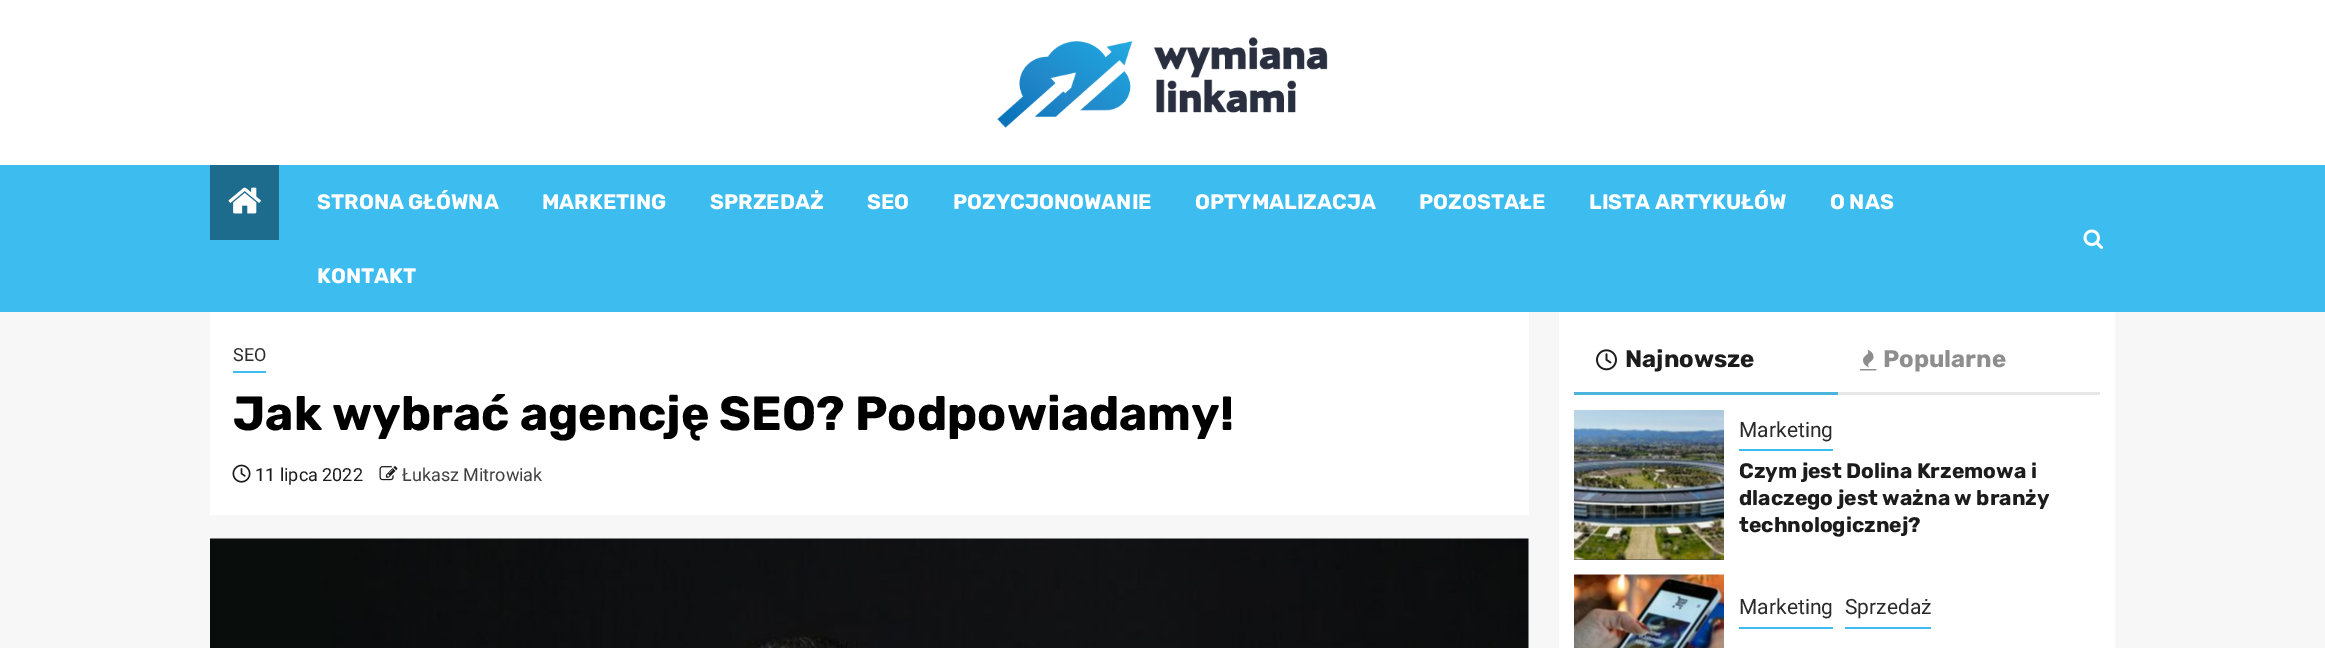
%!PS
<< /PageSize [2325 648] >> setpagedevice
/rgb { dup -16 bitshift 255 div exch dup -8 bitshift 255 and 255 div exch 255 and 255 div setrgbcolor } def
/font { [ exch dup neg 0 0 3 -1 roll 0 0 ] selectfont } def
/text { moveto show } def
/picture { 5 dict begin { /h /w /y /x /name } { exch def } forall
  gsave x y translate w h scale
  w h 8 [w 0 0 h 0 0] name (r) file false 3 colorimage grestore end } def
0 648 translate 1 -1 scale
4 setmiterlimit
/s1 { /Rubik-Bold 21 font 16#FFFFFF rgb } def
/s2 { /Roboto-Regular 18 font 16#2B2B2B rgb } def
/s3 { /Rubik-Bold 48 font 16#000000 rgb } def
/s4 { /Roboto-Regular 18 font 16#1C1C1C rgb } def
/s5 { /Roboto-Regular 18 font 16#404040 rgb } def
/s6 { /Rubik-Bold 24 font 16#1C1C1C rgb } def
/s7 { /Rubik-Bold 24 font 16#8E8E8E rgb } def
/s8 { /Roboto-Regular 21 font 16#2B2B2B rgb } def
/s9 { /Rubik-Bold 21 font 16#1C1C1C rgb } def
16#F7F7F7 rgb
0 0 2325 648 rectfill
16#FFFFFF rgb
0 0 2325 165 rectfill
(pic1.raw) 997 37 331 91 picture
16#3DBDEF rgb
0 165 2325 147 rectfill
16#1D6C8D rgb
210 165 69 75 rectfill
(pic2.raw) 228 187 33 27 picture
s1
(STRONA GŁÓWNA) 317 209 text
(MARKETING) 542 209 text
(SPRZEDAŻ) 710 209 text
(SEO) 867 209 text
(POZYCJONOWANIE) 953 209 text
(OPTYMALIZACJA) 1195 209 text
(POZOSTAŁE) 1419 209 text
(LISTA ARTYKUŁÓW) 1589 209 text
(O NAS) 1830 209 text
(KONTAKT) 317 283 text
(pic3.raw) 2083 229 20 20 picture
210 312 1319 203 rectfill
16#3DBDEF rgb
233 371 33 2 rectfill
s2
(SEO) 233 361 text
s3
(Jak wybrać agencję SEO? Podpowiadamy!) 233 430 text
(pic4.raw) 232 464 19 19 picture
s4
(11 lipca 2022) 255 481 text
(pic5.raw) 379 466 19 15 picture
s5
(Łukasz Mitrowiak) 402 481 text
(pic6.raw) 210 538 1319 110 picture
16#FFFFFF rgb
1559 312 556 336 rectfill
16#E7E7E7 rgb
1838 392 262 3 rectfill
16#4CB3DB rgb
1574 392 264 3 rectfill
(pic7.raw) 1596 349 21 22 picture
s6
(Najnowsze) 1625 367 text
(pic8.raw) 1860 349 17 22 picture
s7
(Popularne) 1883 367 text
16#404040 rgb
1574 559 150 1 rectfill
(pic9.raw) 1574 410 150 150 picture
16#3DBDEF rgb
1739 449 94 2 rectfill
s8
(Marketing) 1739 437 text
s9
(Czym jest Dolina Krzemowa i) 1739 478 text
(dlaczego jest ważna w branży) 1739 505 text
(technologicznej?) 1739 532 text
(pic10.raw) 1574 574 150 74 picture
16#3DBDEF rgb
1739 627 94 2 rectfill
s8
(Marketing) 1739 614 text
16#3DBDEF rgb
1845 627 86 2 rectfill
s8
(Sprzedaż) 1845 614 text
showpage
